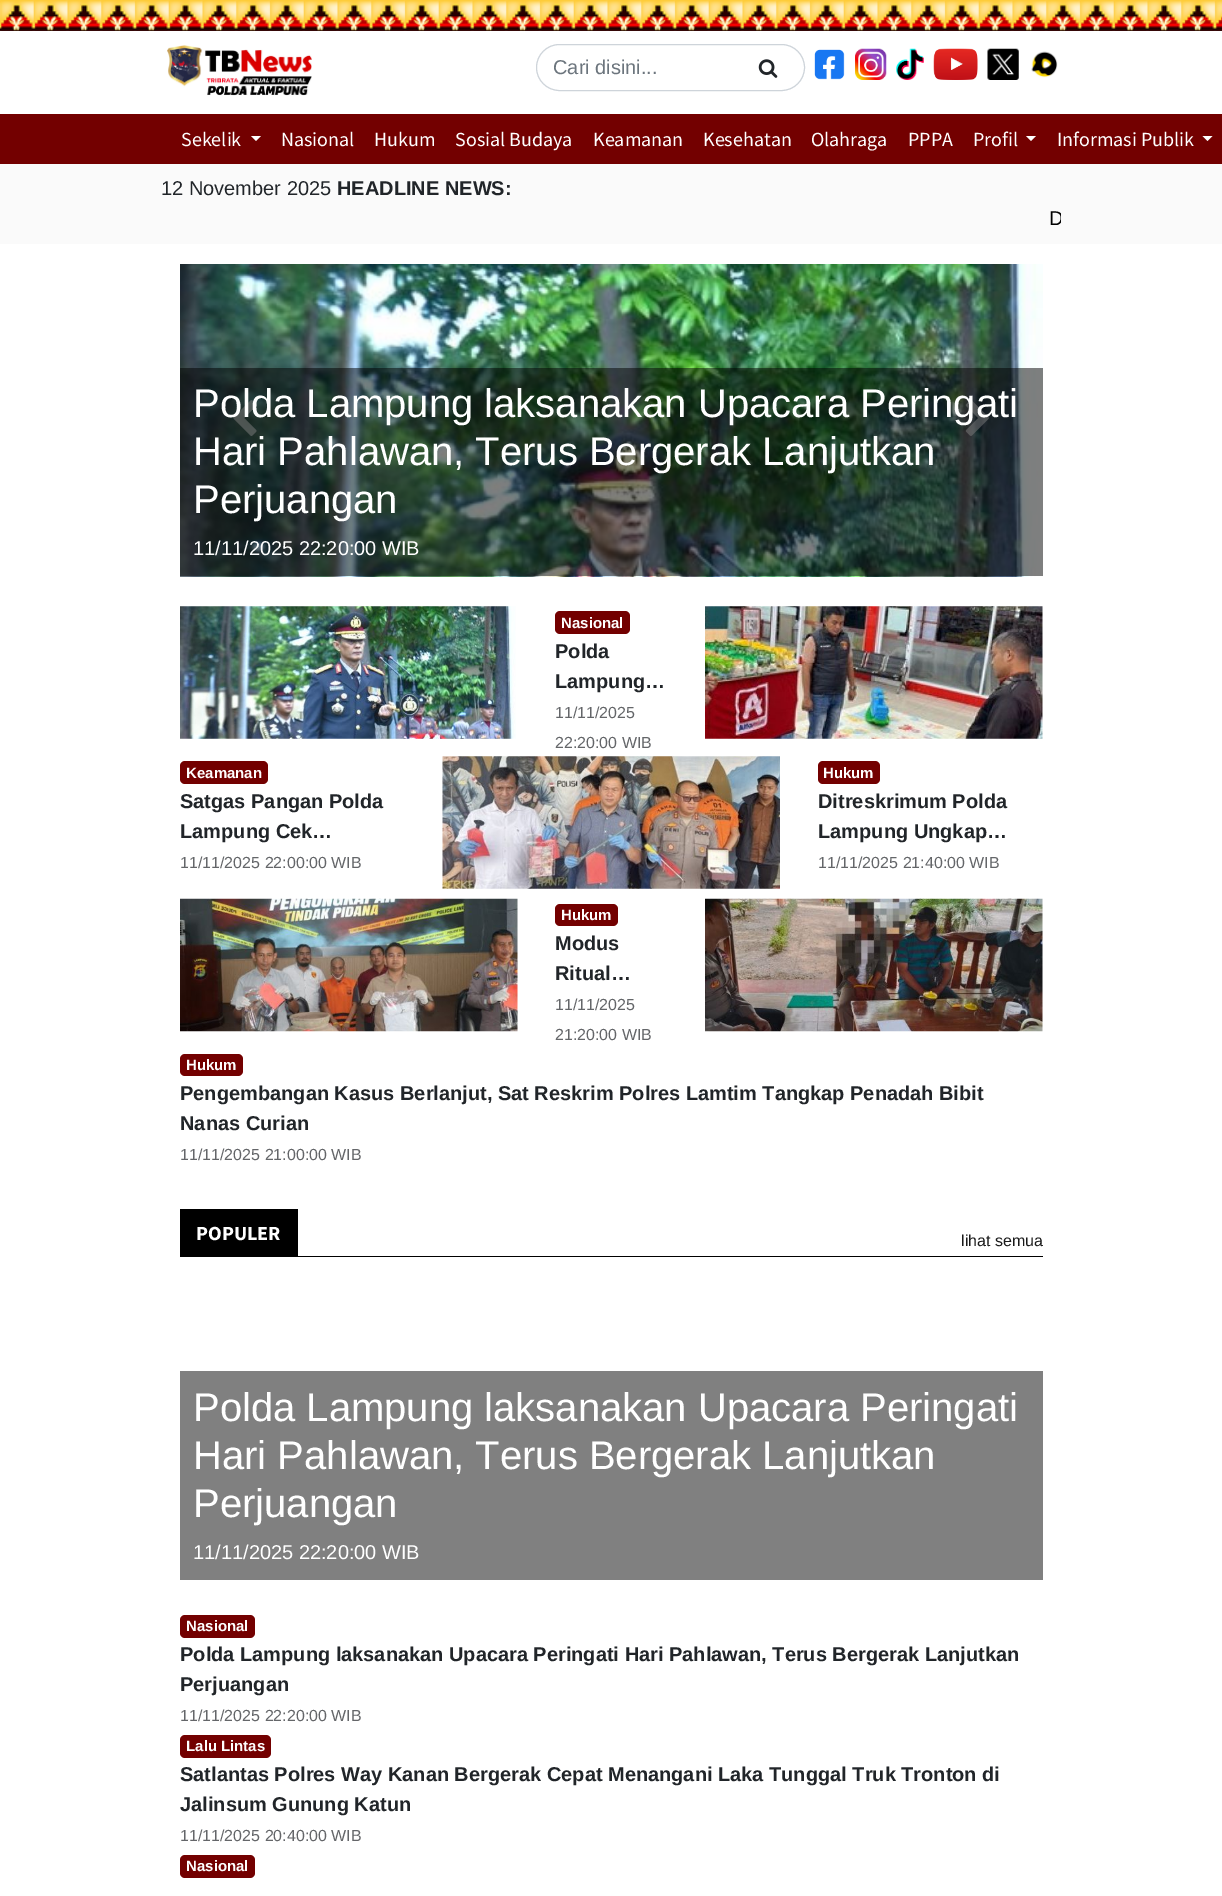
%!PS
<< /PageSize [1222 1896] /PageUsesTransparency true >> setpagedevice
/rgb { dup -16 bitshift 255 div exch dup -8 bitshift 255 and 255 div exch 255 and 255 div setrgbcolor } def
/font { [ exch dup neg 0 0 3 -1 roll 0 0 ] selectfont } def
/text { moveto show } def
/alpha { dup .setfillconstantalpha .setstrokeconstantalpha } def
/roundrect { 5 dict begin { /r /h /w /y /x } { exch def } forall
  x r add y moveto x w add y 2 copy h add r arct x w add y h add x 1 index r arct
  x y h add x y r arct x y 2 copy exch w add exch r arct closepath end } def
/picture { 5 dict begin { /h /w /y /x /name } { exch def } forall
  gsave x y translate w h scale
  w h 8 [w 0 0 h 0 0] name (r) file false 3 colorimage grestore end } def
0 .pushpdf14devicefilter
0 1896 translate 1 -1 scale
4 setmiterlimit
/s1 { /LiberationSans-Regular 20 font 16#6C757D rgb } def
/s2 { /SourceSansPro-Regular 20 font 16#FFFFFF rgb } def
/s3 { /LiberationSans-Regular 20 font 16#212529 rgb } def
/s4 { /LiberationSans-Bold 20 font 16#212529 rgb } def
/s5 { /LiberationSans-Regular 20 font 16#000000 rgb } def
/s6 { /LiberationSans-Regular 40 font 16#FFFFFF rgb } def
/s7 { /LiberationSans-Regular 20 font 16#FFFFFF rgb } def
/s8 { /LiberationSans-Bold 15 font 16#FFFFFF rgb } def
/s9 { /LiberationSans-Regular 16 font 16#646669 rgb } def
/s10 { /SourceSansPro-Bold 20 font 16#FFFFFF rgb } def
/s11 { /LiberationSans-Regular 16 font 16#1A1A1A rgb } def
16#FFFFFF rgb
0 0 1222 1896 rectfill
(pic1.raw) 0 0 1222 31 picture
(pic2.raw) 167 45 145 51 picture
16#CED4DA rgb
536.5 44.5 268 46 23 roundrect stroke
s1
(Cari disini...) 553 74 text
(pic3.raw) 758 59 20 19 picture
(pic4.raw) 814 49 31 31 picture
(pic5.raw) 855 48 32 32 picture
(pic6.raw) 896 48 28 32 picture
(pic7.raw) 933 48 45 32 picture
(pic8.raw) 987 48 32 32 picture
(pic9.raw) 1031 51 27 27 picture
16#730000 rgb
0 114 1222 50 rectfill
s2
(Sekelik) 181 146 text
251 136 moveto 261 136 lineto 256 141 lineto closepath fill
(Nasional) 281 146 text
(Hukum) 374 146 text
(Sosial Budaya) 455 146 text
(Keamanan) 593 146 text
(Kesehatan) 703 146 text
(Olahraga) 811 146 text
(PPPA) 908 146 text
(Profil) 973 146 text
1026 136 moveto 1036 136 lineto 1031 141 lineto closepath fill
(Informasi Publik) 1057 146 text
1202.5 136 moveto 1212.5 136 lineto 1207.5 141 lineto closepath fill
16#FAFAFA rgb
0 164 1222 80 rectfill
s3
(12 November 2025) 161 195 text
s4
(HEADLINE NEWS:) 337 195 text
gsave
161 204 900 30 rectclip
s5
(D) 1049 225 text
grestore
(pic10.raw) 180 264 863 313 picture
(pic11.raw) 233 400 24 36 picture
(pic12.raw) 965 400 24 36 picture
0.5 alpha
16#000000 rgb
180 368 863 208 rectfill
1 alpha
s6
(Polda Lampung laksanakan Upacara Peringati) 193 417 text
(Hari Pahlawan, Terus Bergerak Lanjutkan) 193 465 text
(Perjuangan) 193 513 text
s7
(11/11/2025 22:20:00 WIB) 193 555 text
(pic13.raw) 180 606 336 133 picture
16#730000 rgb
555 611 75 23 5 roundrect fill
s8
(Nasional) 561 628 text
s4
(Polda) 555 658 text
(Lampung…) 555 688 text
s9
(11/11/2025) 555 718 text
(22:20:00 WIB) 555 748 text
(pic14.raw) 705 606 338 133 picture
16#730000 rgb
180 761 88 23 5 roundrect fill
s8
(Keamanan) 186 778 text
s4
(Satgas Pangan Polda) 180 808 text
(Lampung Cek…) 180 838 text
s9
(11/11/2025 22:00:00 WIB) 180 868 text
(pic15.raw) 442 756 338 133 picture
16#730000 rgb
818 761 62 23 5 roundrect fill
s8
(Hukum) 823 778 text
s4
(Ditreskrimum Polda) 818 808 text
(Lampung Ungkap…) 818 838 text
s9
(11/11/2025 21:40:00 WIB) 818 868 text
(pic16.raw) 180 898 338 134 picture
16#730000 rgb
555 904 63 22 5 roundrect fill
s8
(Hukum) 561 920 text
s4
(Modus) 555 950 text
(Ritual…) 555 980 text
s9
(11/11/2025) 555 1010 text
(21:20:00 WIB) 555 1040 text
(pic17.raw) 705 898 338 134 picture
16#730000 rgb
180 1054 63 22 5 roundrect fill
s8
(Hukum) 186 1070 text
s4
(Pengembangan Kasus Berlanjut, Sat Reskrim Polres Lamtim Tangkap Penadah Bibit) 180 1100 text
(Nanas Curian) 180 1130 text
s9
(11/11/2025 21:00:00 WIB) 180 1160 text
16#000000 rgb
180 1209 118 47 rectfill
s10
(POPULER) 196 1240 text
s11
(lihat semua) 961 1246 text
16#000000 rgb
180 1256 863 1 rectfill
16#808080 rgb
180 1371 863 209 rectfill
s6
(Polda Lampung laksanakan Upacara Peringati) 193 1421 text
(Hari Pahlawan, Terus Bergerak Lanjutkan) 193 1469 text
(Perjuangan) 193 1517 text
s7
(11/11/2025 22:20:00 WIB) 193 1559 text
16#730000 rgb
180 1615 75 23 5 roundrect fill
s8
(Nasional) 186 1631 text
s4
(Polda Lampung laksanakan Upacara Peringati Hari Pahlawan, Terus Bergerak Lanjutkan) 180 1661 text
(Perjuangan) 180 1691 text
s9
(11/11/2025 22:20:00 WIB) 180 1721 text
16#730000 rgb
180 1735 91 23 5 roundrect fill
s8
(Lalu Lintas) 186 1751 text
s4
(Satlantas Polres Way Kanan Bergerak Cepat Menangani Laka Tunggal Truk Tronton di) 180 1781 text
(Jalinsum Gunung Katun) 180 1811 text
s9
(11/11/2025 20:40:00 WIB) 180 1841 text
16#730000 rgb
180 1855 75 23 5 roundrect fill
s8
(Nasional) 186 1871 text
.poppdf14devicefilter showpage
